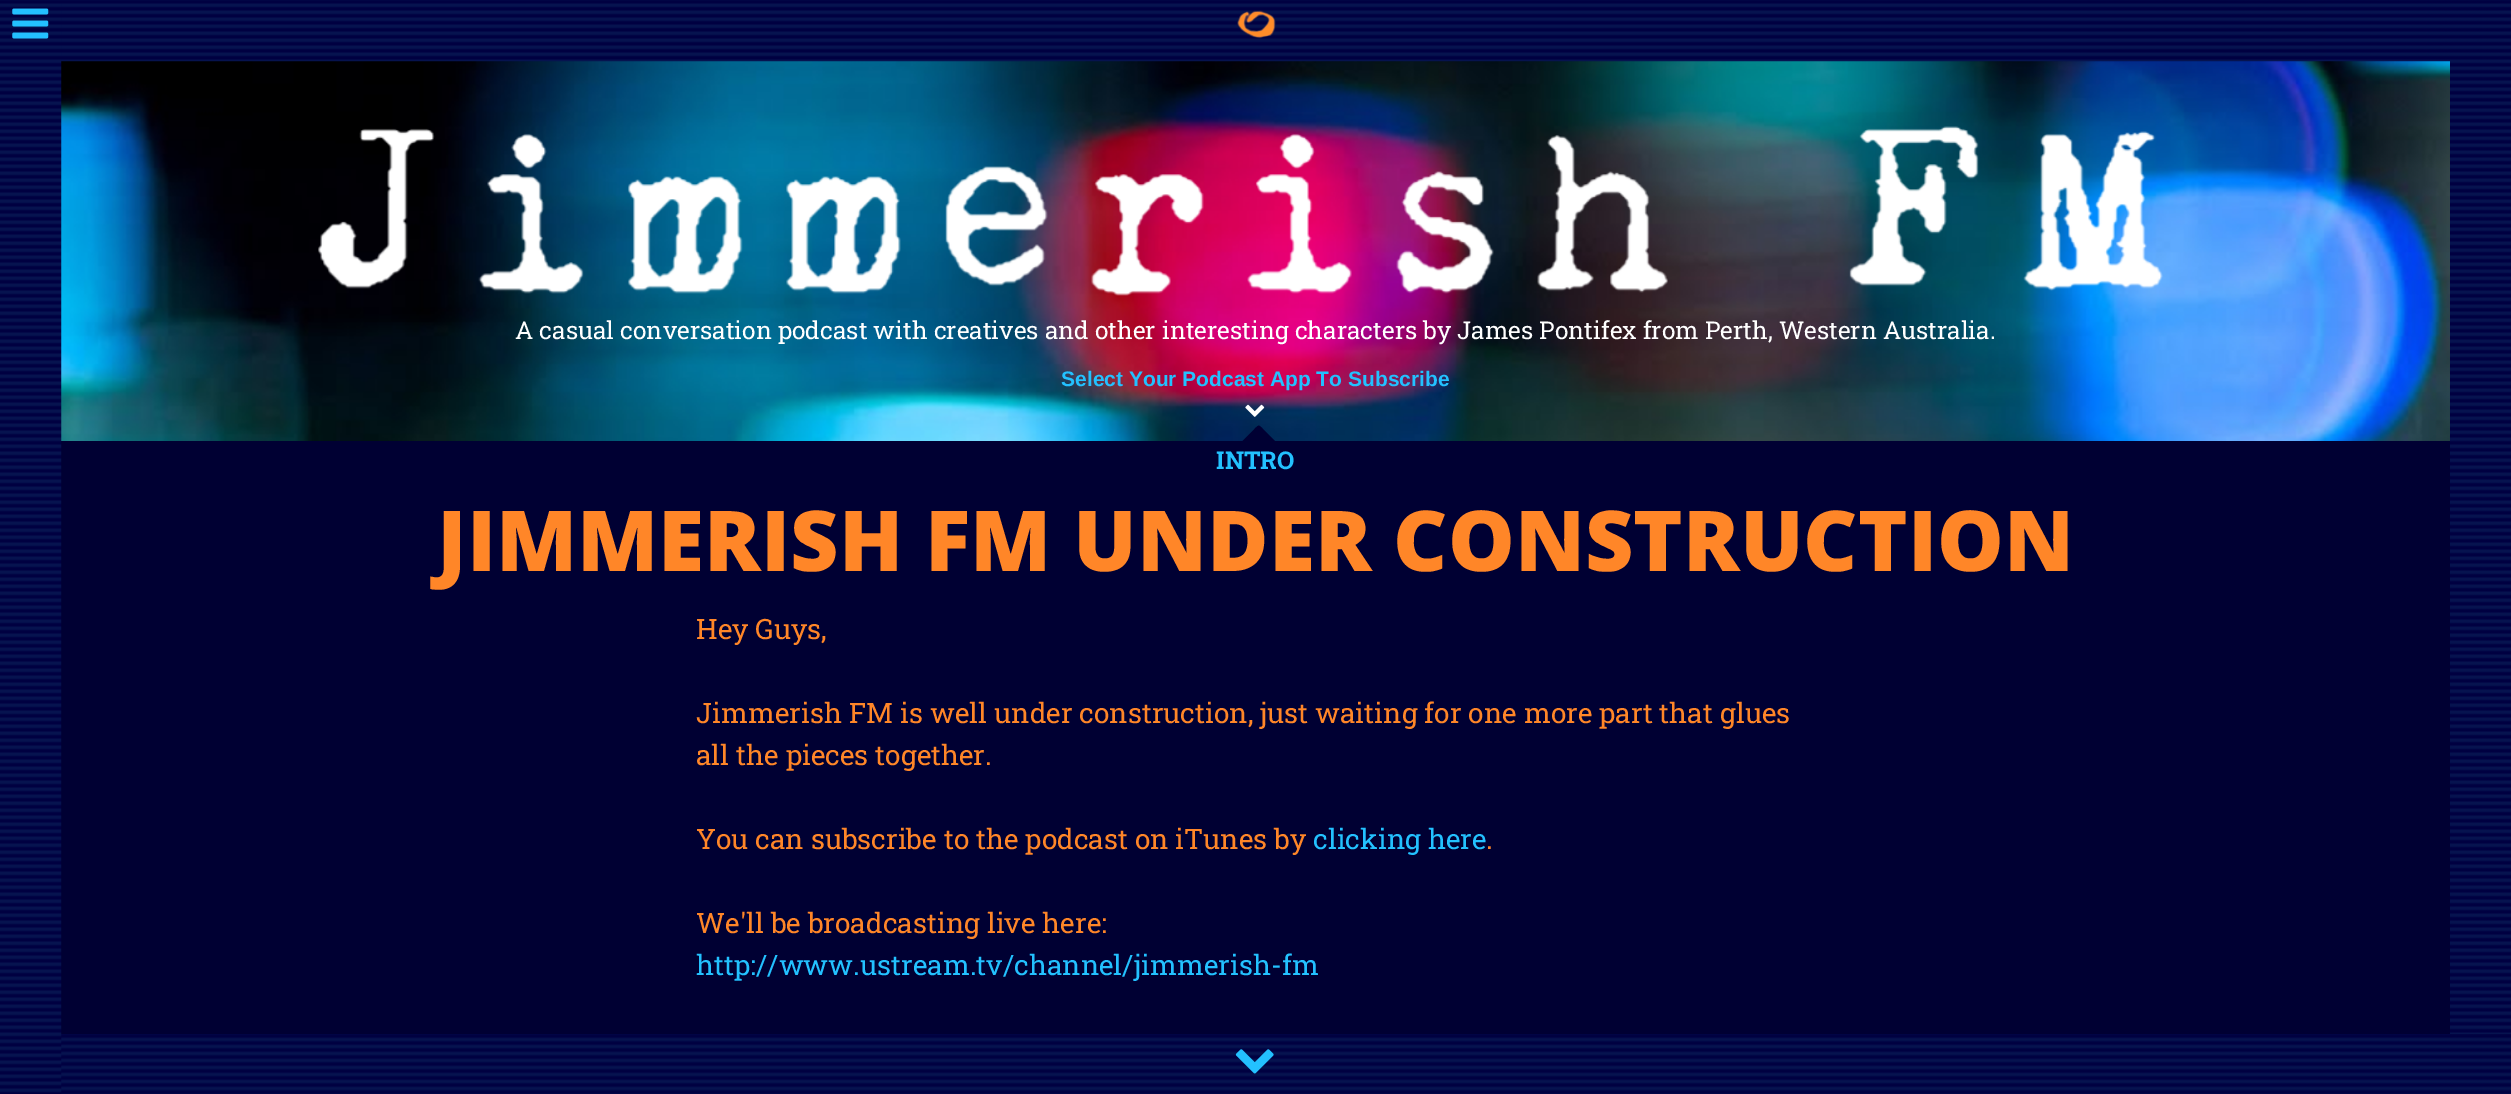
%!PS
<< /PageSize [2511 1094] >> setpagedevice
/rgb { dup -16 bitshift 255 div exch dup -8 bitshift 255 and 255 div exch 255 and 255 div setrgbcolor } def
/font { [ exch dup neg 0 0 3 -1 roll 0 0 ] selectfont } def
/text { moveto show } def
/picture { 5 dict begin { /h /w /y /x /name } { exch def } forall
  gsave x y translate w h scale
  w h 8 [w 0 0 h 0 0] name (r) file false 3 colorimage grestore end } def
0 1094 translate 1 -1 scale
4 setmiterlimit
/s1 { /RobotoSlab-Regular 24.5 font 16#FFFFFF rgb } def
/s2 { /LiberationSans-Bold 21 font 16#23C1FF rgb } def
/s3 { /RobotoSlab-Bold 24.5 font 16#23C1FF rgb } def
/s4 { /OpenSans-ExtraBold 84 font 16#FF8628 rgb } def
/s5 { /RobotoSlab-Regular 28 font 16#FF8628 rgb } def
/s6 { /RobotoSlab-Regular 28 font 16#23C1FF rgb } def
16#FFFFFF rgb
0 0 2511 1094 rectfill
(pic1.raw) 61 61 2389 380 picture
(pic4.raw) 61 0 2389 62 picture
(pic7.raw) 61 1034 2450 60 picture
16#000033 rgb
61 441 2389 593 rectfill
(pic2.raw) 0 0 62 1094 picture
(pic3.raw) 12 8 37 31 picture
(pic5.raw) 1237 10 39 29 picture
(pic6.raw) 2450 0 61 1034 picture
(pic8.raw) 1235 1049 39 25 picture
(pic9.raw) 318 126 1845 170 picture
s1
(A casual conversation podcast with creatives and other interesting characters by James Pontifex from Perth, Western Australia.) 515 339 text
s2
(Select Your Podcast App To Subscribe) 1061 386 text
(pic10.raw) 1245 404 20 13 picture
16#000033 rgb
1276 442 moveto 1276.5 443 lineto 1278.5 447 1270 446 1269 446 curveto 1242.5 446 lineto 1241 445.5 1240 443.5 1241.5 442 curveto 1254.5 429 lineto 1259 424.5 1258.5 424.5 1263 429 curveto closepath fill
s3
(INTRO) 1216 469 text
s4
(JIMMERISH FM UNDER CONSTRUCTION) 437 571 text
s5
(Hey Guys,) 696 639 text
(Jimmerish FM is well under construction, just waiting for one more part that glues) 696 723 text
(all the pieces together.) 696 765 text
(You can subscribe to the podcast on iTunes by) 696 849 text
s6
(clicking here) 1313 849 text
s5
(.) 1486 849 text
(We'll be broadcasting live here:) 696 933 text
s6
(http://www.ustream.tv/channel/jimmerish-fm) 696 975 text
showpage
